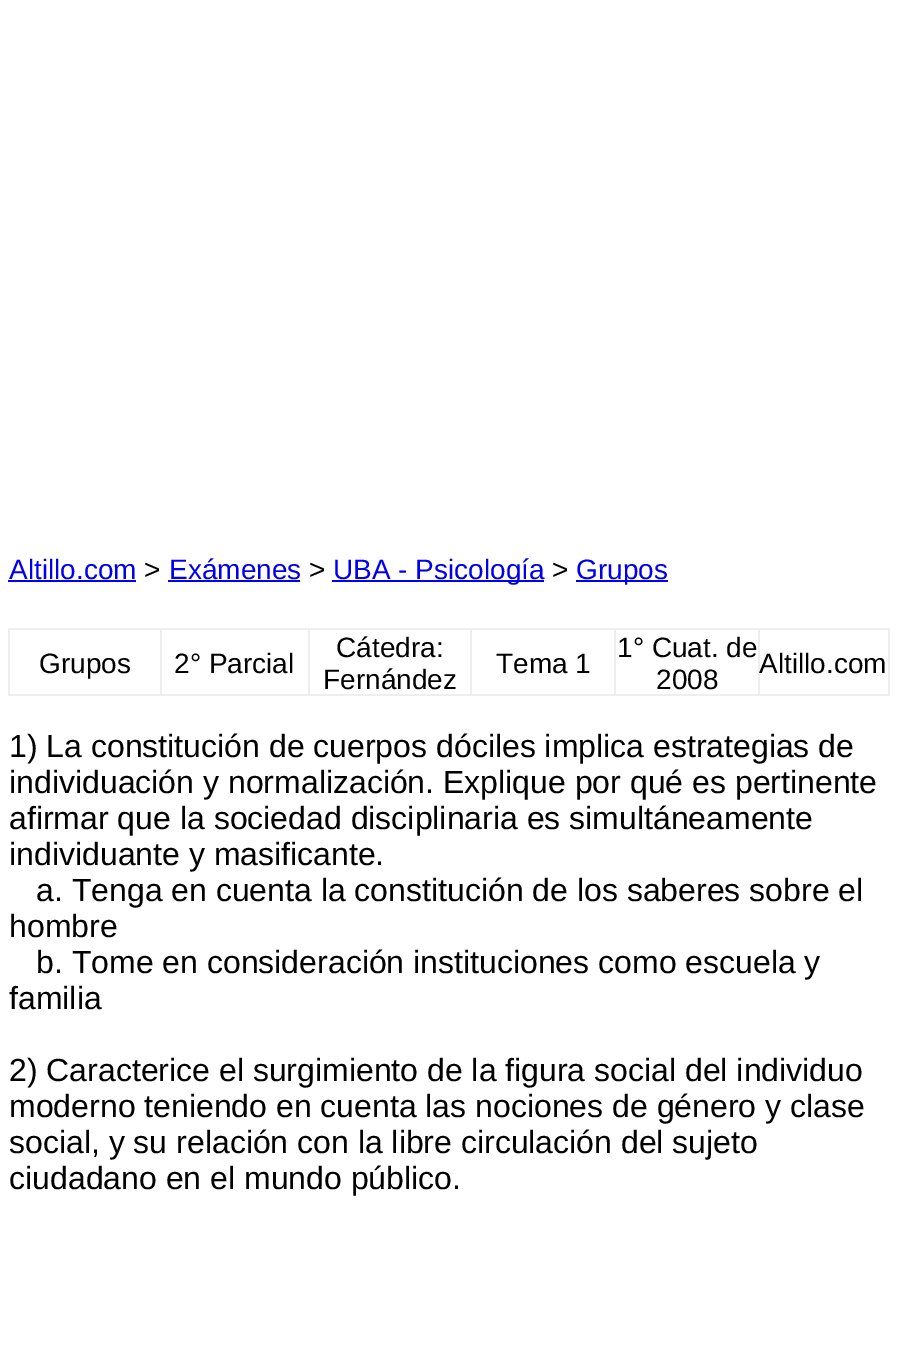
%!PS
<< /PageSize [897 1355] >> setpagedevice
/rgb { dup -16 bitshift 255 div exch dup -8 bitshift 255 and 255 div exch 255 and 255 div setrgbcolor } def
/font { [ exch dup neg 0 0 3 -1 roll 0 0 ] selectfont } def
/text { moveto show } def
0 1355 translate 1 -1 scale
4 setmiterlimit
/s1 { /LiberationSans-Regular 28 font 16#0000EE rgb } def
/s2 { /LiberationSans-Regular 28 font 16#000000 rgb } def
/s3 { /LiberationSans-Regular 32 font 16#000000 rgb } def
16#FFFFFF rgb
0 0 897 1355 rectfill
s1
(Altillo.com) 9 579 text
8 580 128 2 rectfill
s2
(>) 144 579 text
s1
(Exámenes) 169 579 text
168 580 132 2 rectfill
s2
(>) 309 579 text
16#0000EE rgb
332 580 212 2 rectfill
(UBA - Psicología) 333 579 text
s2
(>) 552 579 text
16#0000EE rgb
576 580 92 2 rectfill
(Grupos) 576 579 text
16#EEEEEE rgb
758 628 132 2 rectfill
888 628 2 68 rectfill
758 694 132 2 rectfill
758 628 2 68 rectfill
614 628 146 2 rectfill
614 694 146 2 rectfill
614 628 2 68 rectfill
470 628 146 2 rectfill
470 694 146 2 rectfill
470 628 2 68 rectfill
308 628 164 2 rectfill
308 694 164 2 rectfill
308 628 2 68 rectfill
160 628 150 2 rectfill
160 694 150 2 rectfill
160 628 2 68 rectfill
8 628 154 2 rectfill
8 694 154 2 rectfill
8 628 2 68 rectfill
s2
(Grupos) 39 673 text
(2° Parcial) 174 673 text
(Cátedra:) 336 657 text
(Fernández) 323 689 text
(Tema 1) 496 673 text
(1° Cuat. de) 617 657 text
(2008) 656 689 text
(Altillo.com) 759 673 text
s3
(1\) La constitución de cuerpos dóciles implica estrategias de) 9 757 text
(individuación y normalización. Explique por qué es pertinente) 9 793 text
(afirmar que la sociedad disciplinaria es simultáneamente) 9 829 text
(individuante y masificante.) 9 865 text
(a. Tenga en cuenta la constitución de los saberes sobre el) 36 901 text
(hombre) 9 937 text
(b. Tome en consideración instituciones como escuela y) 36 973 text
(familia) 9 1009 text
(2\) Caracterice el surgimiento de la figura social del individuo) 9 1081 text
(moderno teniendo en cuenta las nociones de género y clase) 9 1117 text
(social, y su relación con la libre circulación del sujeto) 9 1153 text
(ciudadano en el mundo público.) 9 1189 text
showpage
